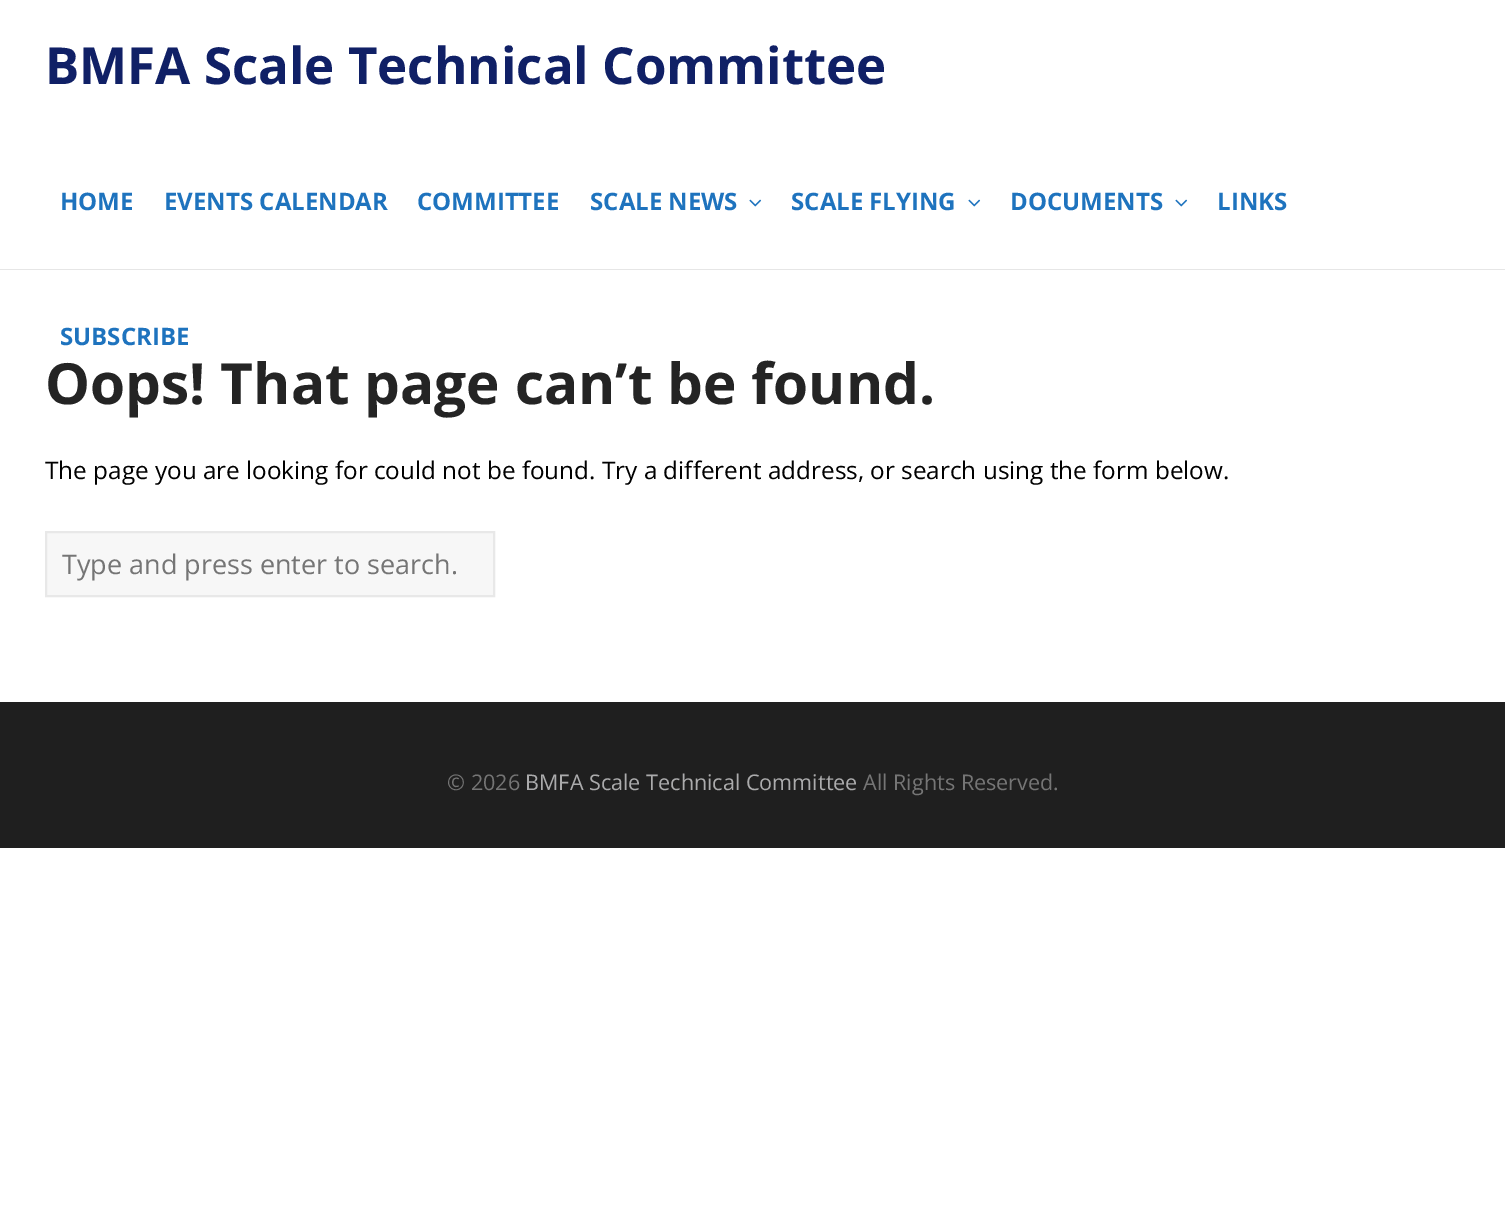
%!PS
<< /PageSize [1505 1231] >> setpagedevice
/rgb { dup -16 bitshift 255 div exch dup -8 bitshift 255 and 255 div exch 255 and 255 div setrgbcolor } def
/font { [ exch dup neg 0 0 3 -1 roll 0 0 ] selectfont } def
/text { moveto show } def
/picture { 5 dict begin { /h /w /y /x /name } { exch def } forall
  gsave x y translate w h scale
  w h 8 [w 0 0 h 0 0] name (r) file false 3 colorimage grestore end } def
0 1231 translate 1 -1 scale
4 setmiterlimit
/s1 { /OpenSans-Bold 51 font 16#102066 rgb } def
/s2 { /OpenSans-Bold 24 font 16#1E73BE rgb } def
/s3 { /OpenSans-Bold 56.75 font 16#242424 rgb } def
/s4 { /OpenSans-Regular 24.3 font 16#000000 rgb } def
/s5 { /OpenSans-Regular 27 font 16#757575 rgb } def
/s6 { /OpenSans-Regular 21.6 font 16#757575 rgb } def
/s7 { /OpenSans-Regular 21.6 font 16#ABABAC rgb } def
16#FFFFFF rgb
0 0 1505 1231 rectfill
16#E6E6E6 rgb
0 269 1505 1 rectfill
s1
(BMFA Scale Technical Committee) 45 84 text
s2
(HOME) 60 210 text
(EVENTS CALENDAR) 164 210 text
(COMMITTEE) 417 210 text
(SCALE NEWS) 590 210 text
(pic1.raw) 749 199 13 8 picture
(SCALE FLYING) 791 210 text
(pic1.raw) 968 199 13 8 picture
(DOCUMENTS) 1010 210 text
(pic1.raw) 1175 199 13 8 picture
(LINKS) 1217 210 text
(SUBSCRIBE) 60 345 text
s3
(Oops! That page can’t be found.) 45 404 text
s4
(The page you are looking for could not be found. Try a different address, or search using the form below.) 45 479 text
16#F7F7F7 rgb
46 532 moveto 494 532 lineto 494 596 lineto 46 596 lineto closepath gsave fill grestore
16#E8E8E8 rgb
2 setlinewidth
stroke
gsave
62 546 417 36 rectclip
s5
(Type and press enter to search.) 62 574 text
grestore
16#1F1F1F rgb
0 702 1505 146 rectfill
s6
(© 2026) 447 790 text
s7
(BMFA Scale Technical Committee) 525 790 text
s6
(All Rights Reserved.) 863 790 text
showpage
